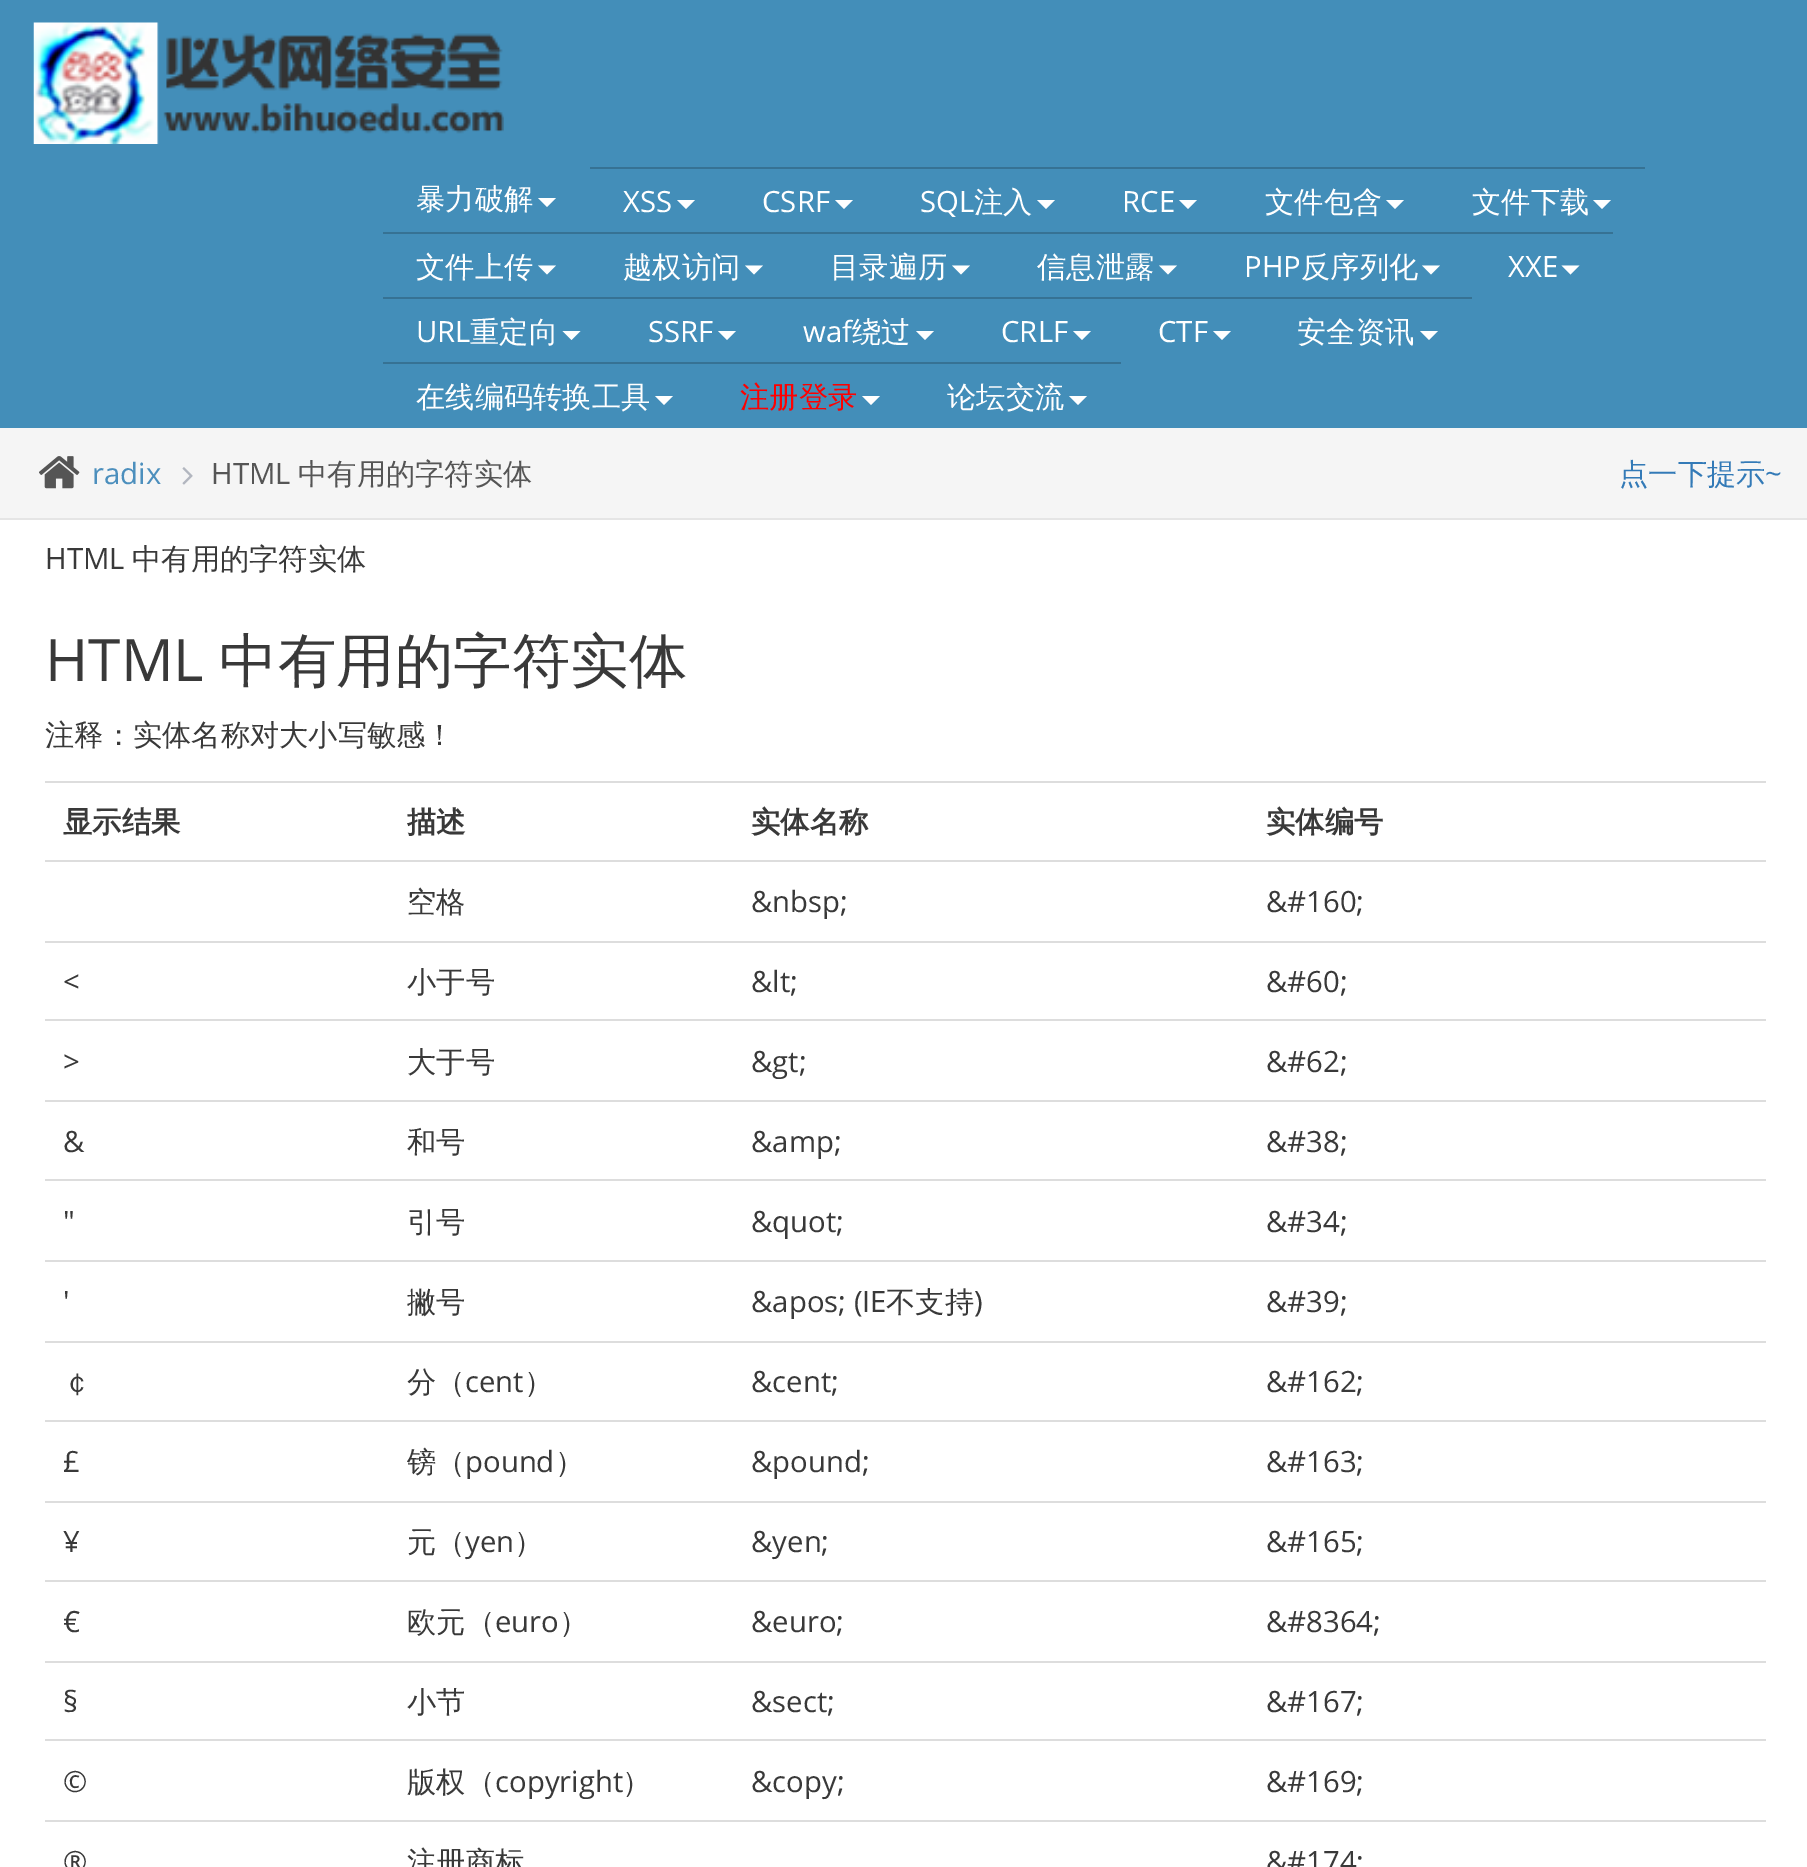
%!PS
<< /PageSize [1807 1867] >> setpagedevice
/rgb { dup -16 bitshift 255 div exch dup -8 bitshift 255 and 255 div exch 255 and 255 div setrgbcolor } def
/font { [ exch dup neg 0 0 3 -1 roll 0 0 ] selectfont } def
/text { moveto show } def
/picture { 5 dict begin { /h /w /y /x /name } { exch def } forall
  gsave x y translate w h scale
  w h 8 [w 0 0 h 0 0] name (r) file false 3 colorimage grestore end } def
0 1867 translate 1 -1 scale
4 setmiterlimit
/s1 { /WenQuanYiZenHei-Medium 29.25 font 16#FFFFFF rgb } def
/s2 { /OpenSans-Regular 29.25 font 16#FFFFFF rgb } def
/s3 { /WenQuanYiZenHei-Medium 29.25 font 16#FF0000 rgb } def
/s4 { /OpenSans-Regular 29.25 font 16#4C8FBD rgb } def
/s5 { /OpenSans-Regular 29.25 font 16#555555 rgb } def
/s6 { /WenQuanYiZenHei-Medium 29.25 font 16#555555 rgb } def
/s7 { /WenQuanYiZenHei-Medium 29.25 font 16#337AB7 rgb } def
/s8 { /OpenSans-Regular 29.25 font 16#337AB7 rgb } def
/s9 { /OpenSans-Regular 29.25 font 16#393939 rgb } def
/s10 { /WenQuanYiZenHei-Medium 29.25 font 16#393939 rgb } def
/s11 { /OpenSans-Regular 58.5 font 16#393939 rgb } def
/s12 { /WenQuanYiZenHei-Medium 58.5 font 16#393939 rgb } def
/s13 { /WenQuanYiZenHei-Bold 29.25 font 16#393939 rgb } def
16#FFFFFF rgb
0 0 1807 1867 rectfill
16#438EB9 rgb
0 0 1807 428 rectfill
(pic1.raw) 33 22 471 122 picture
s1
(暴力破解) 416 209 text
538 198 moveto 556 198 lineto 547 207 lineto closepath fill
16#367294 rgb
590 167 1055 2 rectfill
s2
(XSS) 623 212 text
677 200 moveto 695 200 lineto 686 209 lineto closepath fill
(CSRF) 762 212 text
835 200 moveto 853 200 lineto 844 209 lineto closepath fill
(SQL) 920 212 text
s1
(注入) 974 212 text
1037 200 moveto 1055 200 lineto 1046 209 lineto closepath fill
s2
(RCE) 1122 212 text
1179 200 moveto 1197 200 lineto 1188 209 lineto closepath fill
s1
(文件包含) 1265 212 text
1386 200 moveto 1404 200 lineto 1395 209 lineto closepath fill
(文件下载) 1472 212 text
1593 200 moveto 1611 200 lineto 1602 209 lineto closepath fill
16#367294 rgb
383 232 1230 2 rectfill
s1
(文件上传) 416 277 text
538 265.5 moveto 556 265.5 lineto 547 274.5 lineto closepath fill
(越权访问) 623 277 text
745 265.5 moveto 763 265.5 lineto 754 274.5 lineto closepath fill
(目录遍历) 830 277 text
952 265.5 moveto 970 265.5 lineto 961 274.5 lineto closepath fill
(信息泄露) 1037 277 text
1159 265.5 moveto 1177 265.5 lineto 1168 274.5 lineto closepath fill
s2
(PHP) 1244 277 text
s1
(反序列化) 1301 277 text
1422 265.5 moveto 1440 265.5 lineto 1431 274.5 lineto closepath fill
s2
(XXE) 1508 277 text
1561.5 265.5 moveto 1579.5 265.5 lineto 1570.5 274.5 lineto closepath fill
16#367294 rgb
383 297 1089 2 rectfill
s2
(URL) 416 342 text
s1
(重定向) 470 342 text
562.5 331 moveto 580.5 331 lineto 571.5 340 lineto closepath fill
s2
(SSRF) 648 342 text
718 331 moveto 736 331 lineto 727 340 lineto closepath fill
(waf) 803 342 text
s1
(绕过) 852 342 text
916 331 moveto 934 331 lineto 925 340 lineto closepath fill
s2
(CRLF) 1001 342 text
1073 331 moveto 1091 331 lineto 1082 340 lineto closepath fill
(CTF) 1158 342 text
1213 331 moveto 1231 331 lineto 1222 340 lineto closepath fill
s1
(安全资讯) 1297 342 text
1420 331 moveto 1438 331 lineto 1429 340 lineto closepath fill
16#367294 rgb
383 362 738 2 rectfill
s1
(在线编码转换工具) 416 407 text
655 396 moveto 673 396 lineto 664 405 lineto closepath fill
s3
(注册登录) 740 407 text
16#FFFFFF rgb
862 396 moveto 880 396 lineto 871 405 lineto closepath fill
(论坛交流) 947 407 text
1069 396 moveto 1087 396 lineto 1078 405 lineto closepath fill
16#F5F5F5 rgb
0 428 1807 90 rectfill
16#E5E5E5 rgb
0 518 1807 2 rectfill
(pic2.raw) 39 456 41 33 picture
s4
(radix) 92 484 text
(pic3.raw) 182 467 11 18 picture
s5
(HTML) 211 484 text
s6
(中有用的字符实体) 298 484 text
s7
(点一下提示) 1619 484 text
s8
(~) 1765 484 text
s9
(HTML) 45 569 text
s10
(中有用的字符实体) 132 569 text
s11
(HTML) 45 681 text
s12
(中有用的字符实体) 219 681 text
s10
(注释：实体名称对大小写敏感！) 45 745 text
s13
(显示结果) 63 832 text
(描述) 407 832 text
(实体名称) 751 832 text
16#DDDDDD rgb
45 781 1721 2 rectfill
s13
(实体编号) 1266 832 text
s10
(空格) 407 912 text
s9
(&nbsp;) 751 912 text
16#DDDDDD rgb
45 860 1721 2 rectfill
s9
(&#160;) 1266 912 text
(<) 63 992 text
s10
(小于号) 407 992 text
s9
(&lt;) 751 992 text
16#DDDDDD rgb
45 941 1721 2 rectfill
s9
(&#60;) 1266 992 text
(>) 63 1072 text
s10
(大于号) 407 1072 text
s9
(&gt;) 751 1072 text
16#DDDDDD rgb
45 1019 1721 2 rectfill
s9
(&#62;) 1266 1072 text
(&) 63 1152 text
s10
(和号) 407 1152 text
s9
(&amp;) 751 1152 text
16#DDDDDD rgb
45 1100 1721 2 rectfill
s9
(&#38;) 1266 1152 text
(") 63 1232 text
s10
(引号) 407 1232 text
s9
(&quot;) 751 1232 text
16#DDDDDD rgb
45 1179 1721 2 rectfill
s9
(&#34;) 1266 1232 text
(') 63 1312 text
s10
(撇号) 407 1312 text
s9
(&apos; \(IE) 751 1312 text
s10
(不支持) 886 1312 text
s9
(\)) 974 1312 text
16#DDDDDD rgb
45 1260 1721 2 rectfill
s9
(&#39;) 1266 1312 text
s10
(￠) 63 1392 text
(分（) 407 1392 text
s9
(cent) 465 1392 text
s10
(）) 524 1392 text
s9
(&cent;) 751 1392 text
16#DDDDDD rgb
45 1341 1721 2 rectfill
s9
(&#162;) 1266 1392 text
(£) 63 1472 text
s10
(镑（) 407 1472 text
s9
(pound) 465 1472 text
s10
(）) 555 1472 text
s9
(&pound;) 751 1472 text
16#DDDDDD rgb
45 1420 1721 2 rectfill
s9
(&#163;) 1266 1472 text
(¥) 63 1552 text
s10
(元（) 407 1552 text
s9
(yen) 465 1552 text
s10
(）) 514 1552 text
s9
(&yen;) 751 1552 text
16#DDDDDD rgb
45 1501 1721 2 rectfill
s9
(&#165;) 1266 1552 text
(€) 63 1632 text
s10
(欧元（) 407 1632 text
s9
(euro) 495 1632 text
s10
(）) 559 1632 text
s9
(&euro;) 751 1632 text
16#DDDDDD rgb
45 1580 1721 2 rectfill
s9
(&#8364;) 1266 1632 text
(§) 63 1712 text
s10
(小节) 407 1712 text
s9
(&sect;) 751 1712 text
16#DDDDDD rgb
45 1661 1721 2 rectfill
s9
(&#167;) 1266 1712 text
(©) 63 1792 text
s10
(版权（) 407 1792 text
s9
(copyright) 495 1792 text
s10
(）) 622 1792 text
s9
(&copy;) 751 1792 text
16#DDDDDD rgb
45 1739 1721 2 rectfill
s9
(&#169;) 1266 1792 text
(®) 63 1872 text
s10
(注册商标) 407 1872 text
16#DDDDDD rgb
45 1820 1721 2 rectfill
s9
(&#174;) 1266 1872 text
showpage
